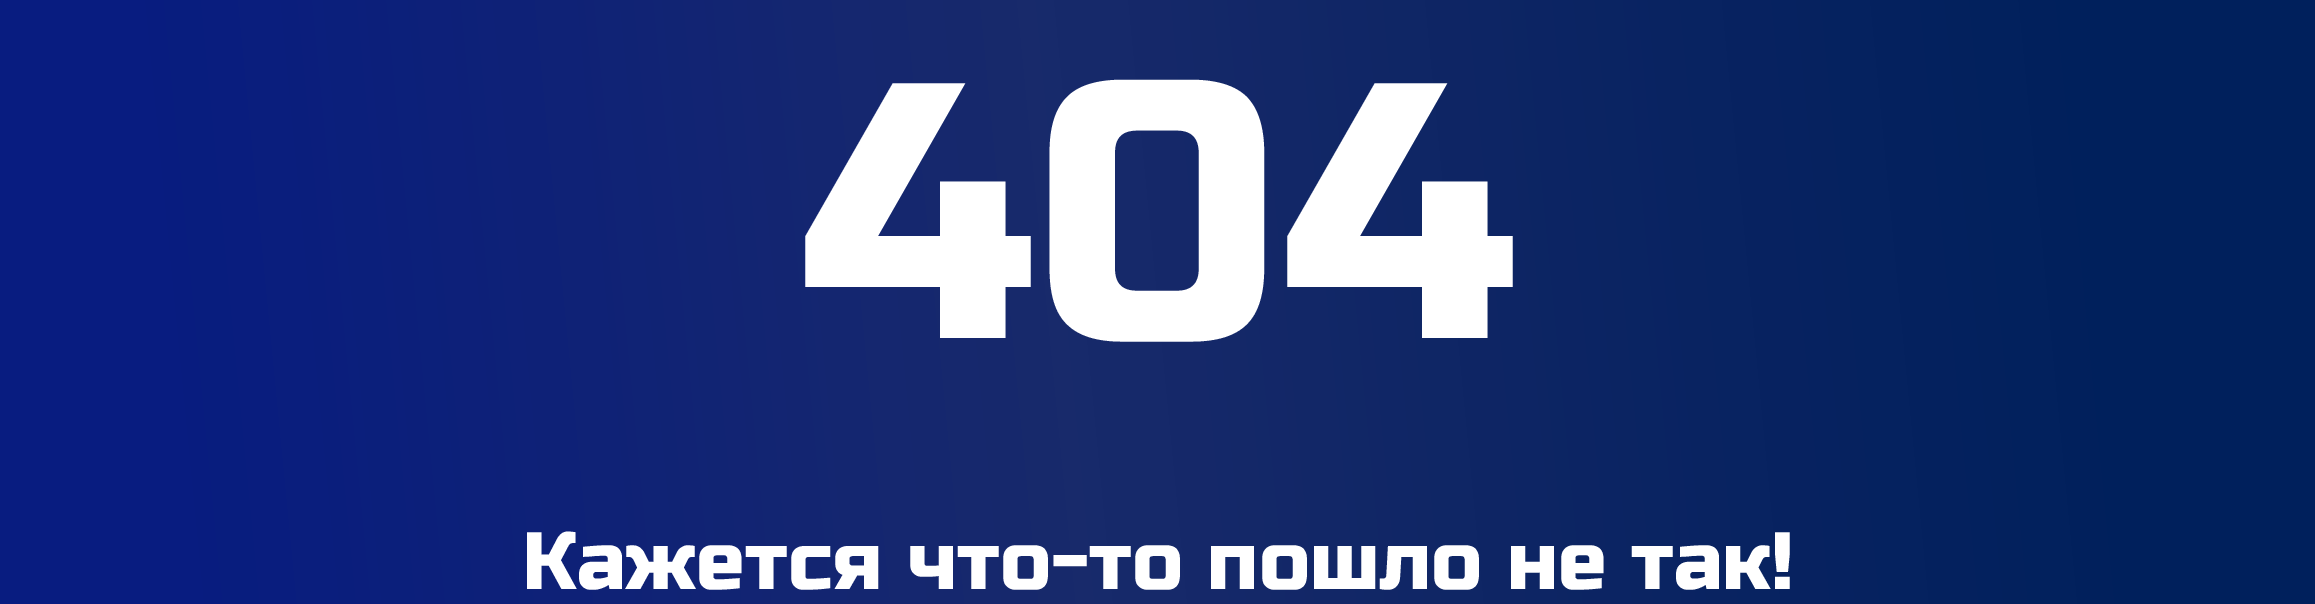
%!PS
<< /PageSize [2315 604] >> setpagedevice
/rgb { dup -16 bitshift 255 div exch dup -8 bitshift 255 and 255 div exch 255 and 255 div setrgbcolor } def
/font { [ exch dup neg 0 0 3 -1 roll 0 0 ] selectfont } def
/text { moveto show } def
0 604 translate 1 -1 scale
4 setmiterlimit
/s1 { /RussoOne-Regular 365 font 16#FFFFFF rgb } def
/s2 { /RussoOne-Regular 81.25 font 16#FFFFFF rgb } def
16#FFFFFF rgb
0 0 2315 604 rectfill
gsave 0 0 moveto 2315 0 lineto 2315 604 lineto 0 604 lineto closepath clip newpath
<< /ShadingType 2 /ColorSpace /DeviceRGB /Coords [-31 547 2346 315] /Extend [true true] /Function << /FunctionType 3 /Domain [0 1] /Functions [<< /FunctionType 2 /Domain [0 1] /C0 [0.031 0.11 0.502] /C1 [0.031 0.11 0.502] /N 1 >> << /FunctionType 2 /Domain [0 1] /C0 [0.031 0.11 0.502] /C1 [0.094 0.165 0.42] /N 1 >> << /FunctionType 2 /Domain [0 1] /C0 [0.094 0.165 0.42] /C1 [0 0.125 0.361] /N 1 >> << /FunctionType 2 /Domain [0 1] /C0 [0 0.125 0.361] /C1 [0 0.125 0.361] /N 1 >>] /Bounds [0.09 0.46 0.91] /Encode [0 1 0 1 0 1 0 1] >> >> shfill grestore
s1
(404) 798 338 text
s2
(Кажется что-то пошло не так!) 522 589 text
showpage
